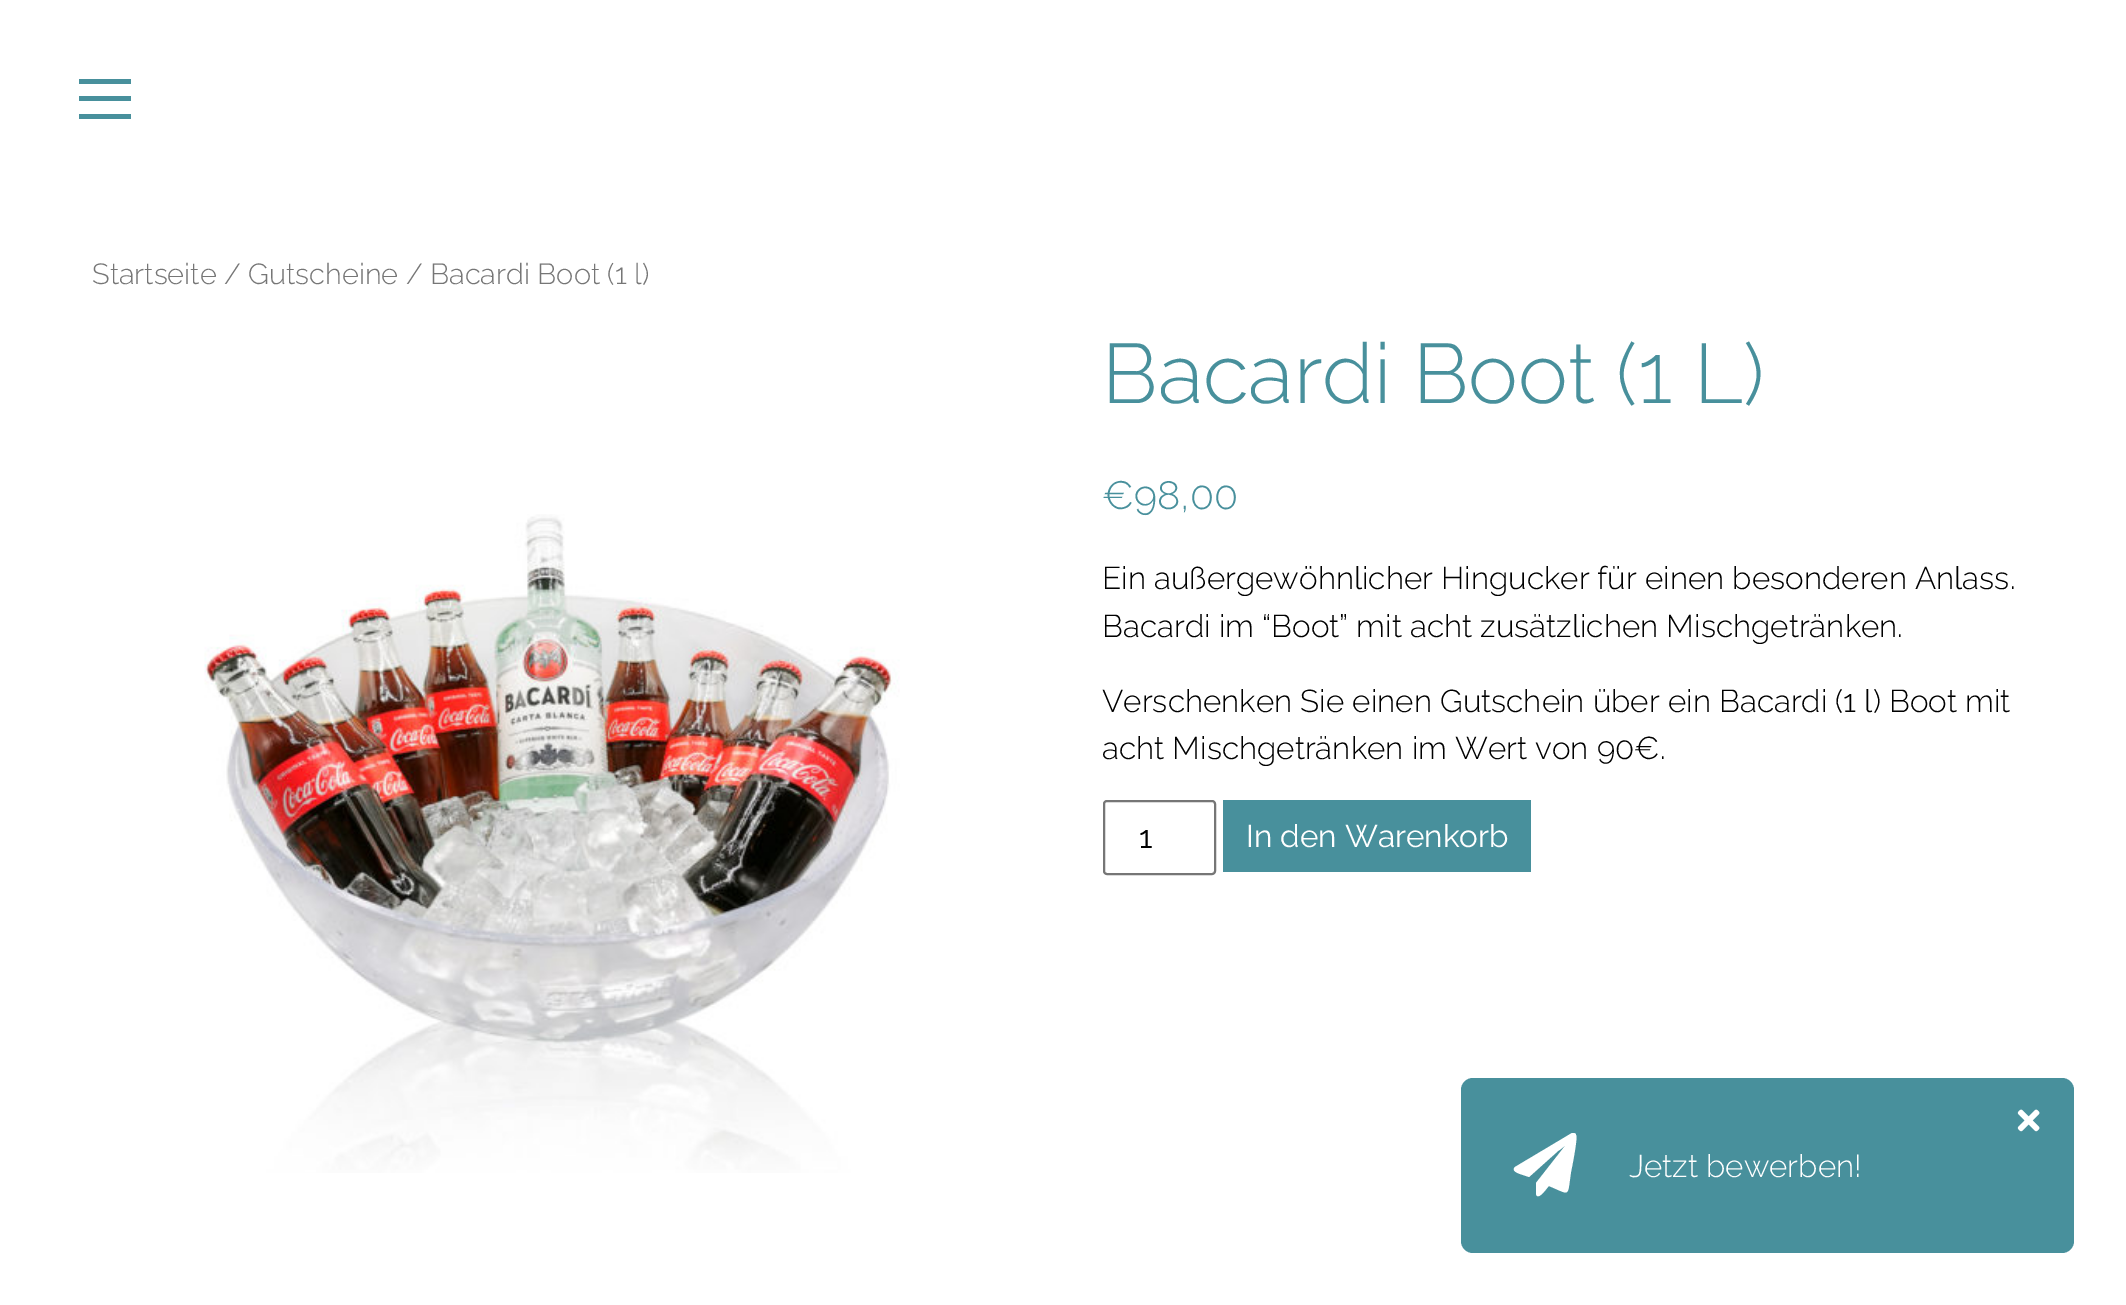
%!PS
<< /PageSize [2126 1305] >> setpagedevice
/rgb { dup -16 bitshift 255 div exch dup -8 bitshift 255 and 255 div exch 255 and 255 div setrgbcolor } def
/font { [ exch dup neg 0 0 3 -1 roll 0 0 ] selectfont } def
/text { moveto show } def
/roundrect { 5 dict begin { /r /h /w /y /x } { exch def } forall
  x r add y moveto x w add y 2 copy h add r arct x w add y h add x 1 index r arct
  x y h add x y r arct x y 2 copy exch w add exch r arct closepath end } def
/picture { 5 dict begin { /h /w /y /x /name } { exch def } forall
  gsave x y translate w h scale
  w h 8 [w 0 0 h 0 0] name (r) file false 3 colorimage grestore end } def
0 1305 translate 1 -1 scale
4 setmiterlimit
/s1 { /Raleway-Light 29 font 16#767676 rgb } def
/s2 { /Raleway-Light 84 font 16#48909C rgb } def
/s3 { /Raleway-Light 39.5 font 16#48909C rgb } def
/s4 { /Raleway-Light 31.5 font 16#000000 rgb } def
/s5 { /Raleway-Regular 31.5 font 16#000000 rgb } def
/s6 { /Raleway-Regular 31.5 font 16#FFFFFF rgb } def
/s7 { /Raleway-Light 31.5 font 16#FFFFFF rgb } def
16#FFFFFF rgb
0 0 2126 1305 rectfill
16#48909C rgb
79 114 52 5 rectfill
79 79 52 5 rectfill
79 96 52 5 rectfill
s1
(Startseite / Gutscheine / Bacardi Boot \(1 l\)) 92 284 text
(pic1.raw) 204 514 696 659 picture
s2
(Bacardi Boot \(1 L\)) 1102 403 text
s3
(€98,00) 1102 509 text
s4
(Ein außergewöhnlicher Hingucker für einen besonderen Anlass.) 1102 589 text
(Bacardi im “Boot” mit acht zusätzlichen Mischgetränken.) 1102 637 text
(Verschenken Sie einen Gutschein über ein Bacardi \(1 l\) Boot mit) 1102 712 text
(acht Mischgetränken im Wert von 90€.) 1102 759 text
16#767676 rgb
2 setlinewidth
1104 801 111 73 3 roundrect stroke
s5
(1) 1139 848 text
16#48909C rgb
1223 800 308 72 rectfill
s6
(In den Warenkorb) 1246 847 text
16#48909C rgb
1461 1078 613 175 12 roundrect fill
(pic2.raw) 2017 1109 23 23 picture
16#FFFFFF rgb
1572 1133 moveto 1574 1133 1576 1133 1576 1135 curveto 1578 1137 1572 1167 1571 1172 curveto 1567 1198 1571 1195 1549 1186 curveto 1548 1186 1538 1202 1536 1194 curveto 1536 1183 lineto 1565 1146 lineto 1565 1145 1564 1147 1558 1151 curveto 1529 1177 lineto 1520 1174 lineto 1518 1173 1511 1171 1515 1167 curveto closepath fill
s7
(Jetzt bewerben!) 1629 1177 text
showpage
